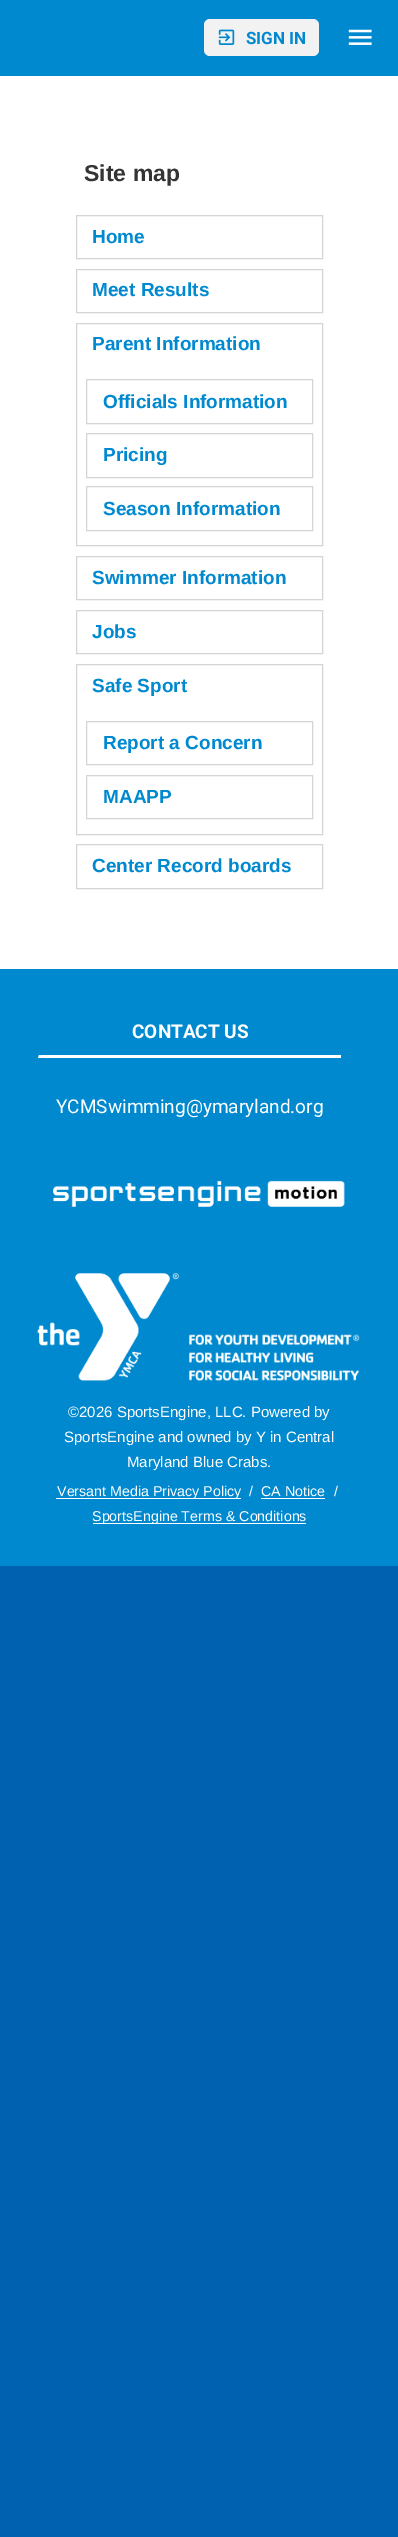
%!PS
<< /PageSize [398 2537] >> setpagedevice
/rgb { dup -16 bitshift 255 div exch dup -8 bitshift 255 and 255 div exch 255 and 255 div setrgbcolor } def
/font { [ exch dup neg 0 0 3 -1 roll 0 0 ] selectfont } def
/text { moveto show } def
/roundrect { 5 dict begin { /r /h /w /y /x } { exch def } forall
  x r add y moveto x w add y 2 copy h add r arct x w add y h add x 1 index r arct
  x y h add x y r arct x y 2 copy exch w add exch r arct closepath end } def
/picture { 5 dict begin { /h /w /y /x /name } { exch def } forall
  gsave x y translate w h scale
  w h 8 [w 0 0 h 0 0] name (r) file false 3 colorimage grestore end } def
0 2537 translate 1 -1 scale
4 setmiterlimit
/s1 { /Roboto-Bold 17 font 16#0089CF rgb } def
/s2 { /LiberationSans-Bold 23 font 16#343434 rgb } def
/s3 { /LiberationSans-Bold 19 font 16#0089CF rgb } def
/s4 { /Roboto-Bold 19 font 16#FFFFFF rgb } def
/s5 { /Roboto-Regular 19 font 16#FFFFFF rgb } def
/s6 { /LiberationSans-Regular 15 font 16#FFFFFF rgb } def
/s7 { /LiberationSans-Regular 14.25 font 16#FFFFFF rgb } def
16#0061B0 rgb
0 0 398 2537 rectfill
16#0089CF rgb
0 0 398 76 rectfill
16#F2F2F2 rgb
204 19 115 37 6 roundrect fill
(pic1.raw) 218 29 17 16 picture
s1
(SIGN IN) 246 44 text
(pic2.raw) 348 29 24 16 picture
16#FFFFFF rgb
0 76 398 893 rectfill
s2
(Site map) 84 181 text
16#D5D5D5 rgb
76.5 215.5 246 43 rectstroke
s3
(Home) 92 243 text
16#D5D5D5 rgb
76.5 269.5 246 43 rectstroke
s3
(Meet Results) 92 296 text
16#D5D5D5 rgb
76.5 323.5 246 222 rectstroke
s3
(Parent Information) 92 350 text
16#D5D5D5 rgb
86.5 379.5 226 44 rectstroke
s3
(Officials Information) 103 408 text
16#D5D5D5 rgb
86.5 433.5 226 44 rectstroke
s3
(Pricing) 103 461 text
16#D5D5D5 rgb
86.5 486.5 226 44 rectstroke
s3
(Season Information) 103 515 text
16#D5D5D5 rgb
76.5 556.5 246 43 rectstroke
s3
(Swimmer Information) 92 584 text
16#D5D5D5 rgb
76.5 610.5 246 43 rectstroke
s3
(Jobs) 92 638 text
16#D5D5D5 rgb
76.5 664.5 246 170 rectstroke
s3
(Safe Sport) 92 692 text
16#D5D5D5 rgb
86.5 721.5 226 43 rectstroke
s3
(Report a Concern) 103 749 text
16#D5D5D5 rgb
86.5 775.5 226 43 rectstroke
s3
(MAAPP) 103 803 text
16#D5D5D5 rgb
76.5 844.5 246 44 rectstroke
s3
(Center Record boards) 92 872 text
0 969 398 597 rectfill
16#FFFFFF rgb
341 1058 moveto 38 1058 lineto 39 1055 lineto 341 1055 lineto closepath fill
s4
(CONTACT US) 132 1038 text
s5
(YCMSwimming@ymaryland.org) 56 1113 text
(pic3.raw) 53 1180 292 27 picture
(pic4.raw) 37 1273 323 108 picture
s6
(©2026 SportsEngine, LLC. Powered by) 68 1417 text
(SportsEngine and owned by Y in Central) 64 1442 text
(Maryland Blue Crabs.) 127 1467 text
56 1498 185 1 rectfill
s7
(Versant Media Privacy Policy) 57 1496 text
(/) 249 1496 text
(CA Notice) 261 1496 text
261 1498 64 1 rectfill
(/) 334 1496 text
93 1523 213 1 rectfill
(SportsEngine Terms & Conditions) 92 1521 text
showpage
